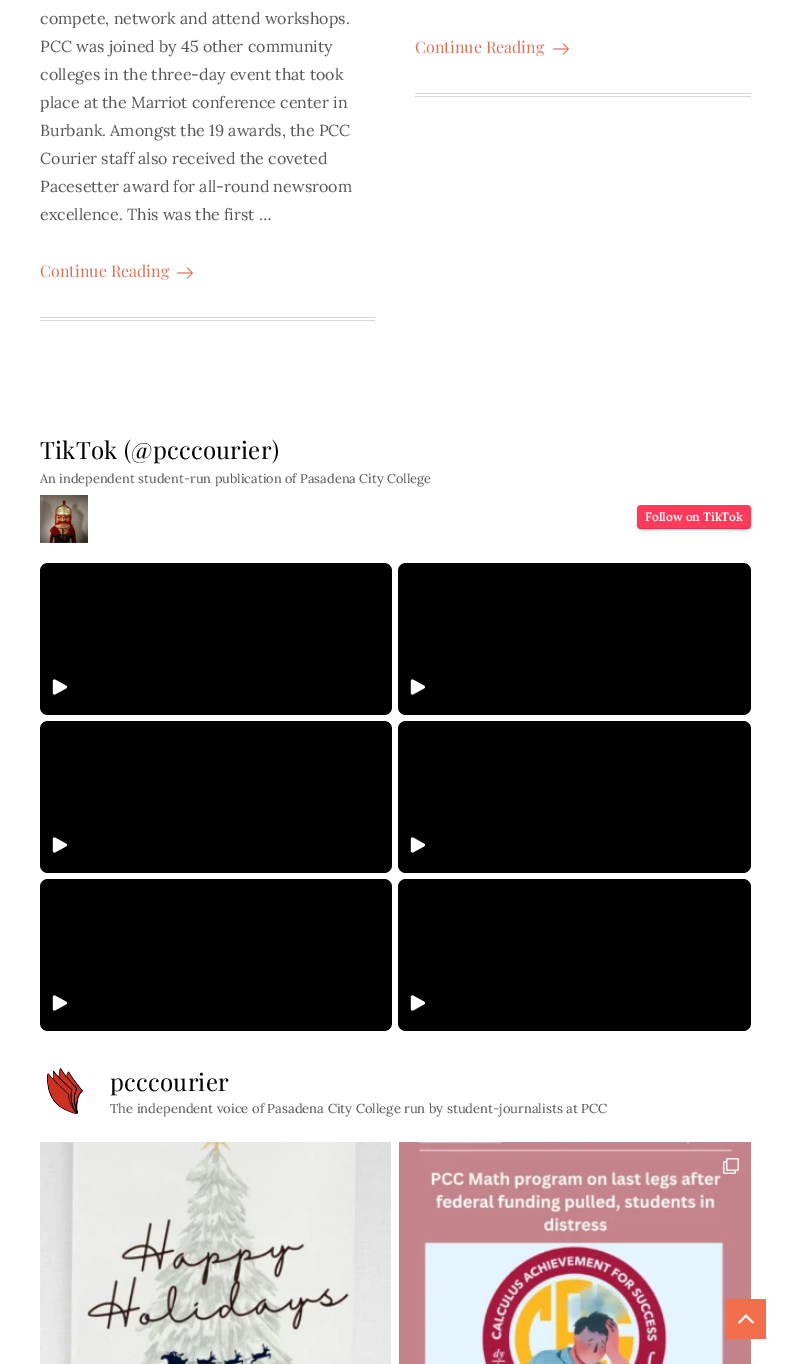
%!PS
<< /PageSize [791 1364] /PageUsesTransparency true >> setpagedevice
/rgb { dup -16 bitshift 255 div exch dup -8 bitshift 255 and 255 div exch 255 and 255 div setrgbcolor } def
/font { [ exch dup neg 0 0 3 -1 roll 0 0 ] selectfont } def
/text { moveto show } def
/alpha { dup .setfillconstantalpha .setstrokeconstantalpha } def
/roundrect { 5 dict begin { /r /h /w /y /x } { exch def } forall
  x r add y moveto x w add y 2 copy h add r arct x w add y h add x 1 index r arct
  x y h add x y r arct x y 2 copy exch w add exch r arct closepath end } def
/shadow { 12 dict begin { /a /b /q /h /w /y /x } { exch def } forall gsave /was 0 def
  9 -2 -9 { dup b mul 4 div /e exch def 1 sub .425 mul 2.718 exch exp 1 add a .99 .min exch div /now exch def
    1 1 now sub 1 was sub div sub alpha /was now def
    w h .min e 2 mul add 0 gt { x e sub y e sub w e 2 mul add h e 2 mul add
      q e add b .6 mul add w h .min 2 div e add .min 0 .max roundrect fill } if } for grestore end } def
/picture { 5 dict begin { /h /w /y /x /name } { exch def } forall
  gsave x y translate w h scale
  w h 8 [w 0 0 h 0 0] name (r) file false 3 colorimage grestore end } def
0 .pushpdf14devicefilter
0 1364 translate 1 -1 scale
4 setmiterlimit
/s1 { /Lora-Regular 16 font 16#565656 rgb } def
/s2 { /PlayfairDisplay-Regular 16 font 16#D67459 rgb } def
/s3 { /Lora-Regular 12.8 font 16#565656 rgb } def
/s4 { /Lora-SemiBold 12 font 16#FFFFFF rgb } def
/s5 { /Lora-Regular 13 font 16#565656 rgb } def
16#FFFFFF rgb
0 0 791 1364 rectfill
16#D8D8D8 rgb
40 320 335 1 rectfill
s1
(compete, network and attend workshops.) 40 24 text
(PCC was joined by 45 other community) 40 52 text
(colleges in the three-day event that took) 40 80 text
(place at the Marriot conference center in) 40 108 text
(Burbank. Amongst the 19 awards, the PCC) 40 136 text
(Courier staff also received the coveted) 40 164 text
(Pacesetter award for all-round newsroom) 40 192 text
(excellence. This was the first …) 40 220 text
s2
(Continue Reading) 40 277 text
(pic1.raw) 177 267 16 12 picture
16#D8D8D8 rgb
40 317 335 1 rectfill
415 96 336 1 rectfill
s2
(Continue Reading) 415 53 text
(pic1.raw) 553 43 16 12 picture
16#D8D8D8 rgb
415 93 336 1 rectfill
/PlayfairDisplay-Regular 24 font
16#000000 rgb
40 459 moveto 0.25 0 (TikTok \(@pcccourier\)) ashow
s3
(An independent student-run publication of Pasadena City College) 40 483 text
(pic2.raw) 40 495 48 48 picture
16#000000 rgb
637 506 114 24 4 0.5 0.08 shadow
gsave
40 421 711 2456 rectclip
16#3C4257 rgb
637 507 114 24 4 2.5 0.12 shadow
grestore
16#FF3B5C rgb
637 505 114 24 4 roundrect fill
0.12 alpha
16#000000 rgb
637 524 moveto 637 534 655 529 659 529 curveto 729 529 lineto 733 529 751 534 751 524 curveto 751 526 749 528 747 528 curveto 641 528 lineto 639 528 637 526 637 524 curveto closepath fill
1 alpha
s4
(Follow on TikTok) 645 521 text
16#000000 rgb
40 563 352 152 8 roundrect fill
(pic3.raw) 52 679 15 16 picture
398 563 353 152 8 roundrect fill
(pic3.raw) 410 679 15 16 picture
40 721 352 152 8 roundrect fill
(pic3.raw) 52 837 15 16 picture
398 721 353 152 8 roundrect fill
(pic3.raw) 410 837 15 16 picture
40 879 352 152 8 roundrect fill
(pic3.raw) 52 995 15 16 picture
398 879 353 152 8 roundrect fill
(pic3.raw) 410 995 15 16 picture
(pic4.raw) 46 1068 38 47 picture
/PlayfairDisplay-Regular 24 font
110 1091 moveto 0.25 0 (pcccourier) ashow
s5
(The independent voice of Pasadena City College run by student-journalists at PCC) 110 1113 text
(pic5.raw) 40 1142 351 222 picture
(pic6.raw) 399 1142 352 222 picture
(pic7.raw) 723 1158 16 16 picture
16#F36E4B rgb
726 1299 40 40 rectfill
(pic8.raw) 738 1314 16 10 picture
.poppdf14devicefilter showpage
